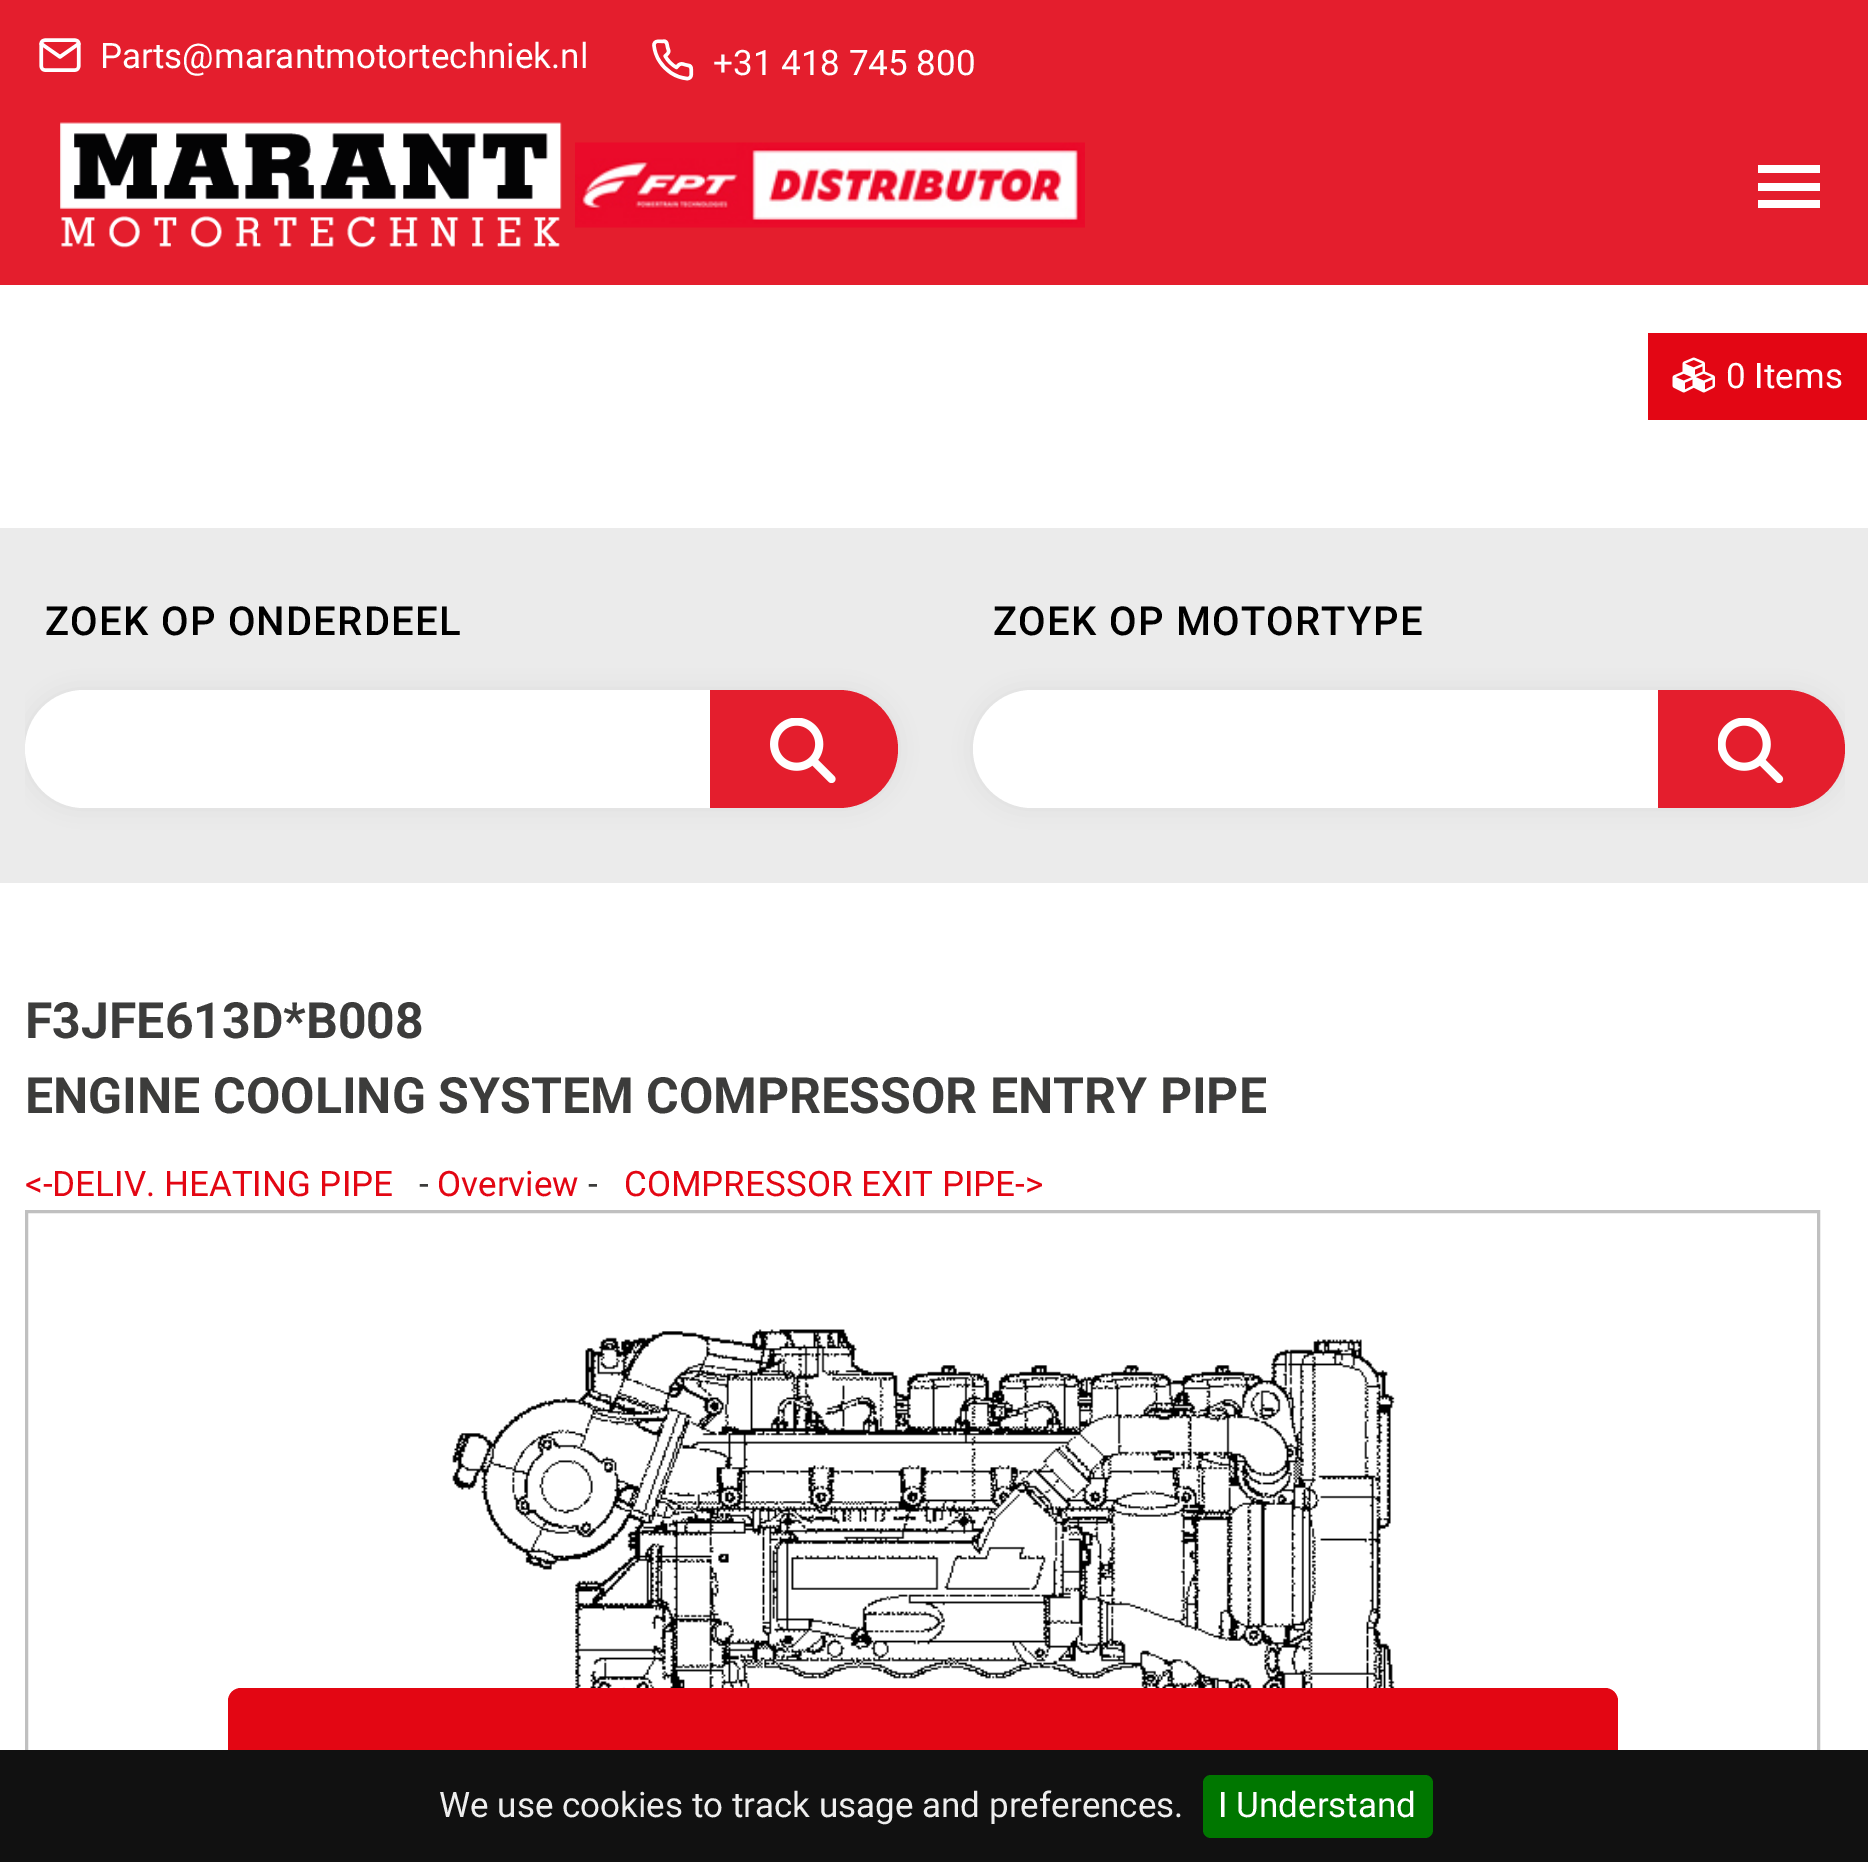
%!PS
<< /PageSize [1868 1862] /PageUsesTransparency true >> setpagedevice
/rgb { dup -16 bitshift 255 div exch dup -8 bitshift 255 and 255 div exch 255 and 255 div setrgbcolor } def
/font { [ exch dup neg 0 0 3 -1 roll 0 0 ] selectfont } def
/text { moveto show } def
/alpha { dup .setfillconstantalpha .setstrokeconstantalpha } def
/roundrect { 5 dict begin { /r /h /w /y /x } { exch def } forall
  x r add y moveto x w add y 2 copy h add r arct x w add y h add x 1 index r arct
  x y h add x y r arct x y 2 copy exch w add exch r arct closepath end } def
/shadow { 12 dict begin { /a /b /q /h /w /y /x } { exch def } forall gsave /was 0 def
  9 -2 -9 { dup b mul 4 div /e exch def 1 sub .425 mul 2.718 exch exp 1 add a .99 .min exch div /now exch def
    1 1 now sub 1 was sub div sub alpha /was now def
    w h .min e 2 mul add 0 gt { x e sub y e sub w e 2 mul add h e 2 mul add
      q e add b .6 mul add w h .min 2 div e add .min 0 .max roundrect fill } if } for grestore end } def
/picture { 5 dict begin { /h /w /y /x /name } { exch def } forall
  gsave x y translate w h scale
  w h 8 [w 0 0 h 0 0] name (r) file false 3 colorimage grestore end } def
0 .pushpdf14devicefilter
0 1862 translate 1 -1 scale
4 setmiterlimit
/s1 { /Roboto-Regular 35 font 16#FFFFFF rgb } def
/s2 { /Roboto-Bold 50 font 16#3C3C3B rgb } def
/s3 { /Roboto-Regular 35 font 16#E30613 rgb } def
/s4 { /Roboto-Regular 35 font 16#3C3C3B rgb } def
/s5 { /Roboto-Regular 35 font 16#EEEEEE rgb } def
16#FFFFFF rgb
0 0 1868 1862 rectfill
16#E41E2D rgb
0 0 1868 285 rectfill
(pic1.raw) 60 122 502 126 picture
(pic2.raw) 575 142 510 86 picture
16#FFFFFF rgb
1758 165 62 8 rectfill
1758 183 62 8 rectfill
1758 200 62 8 rectfill
(pic3.raw) 39 38 42 34 picture
s1
(Parts@marantmotortechniek.nl) 100 68 text
(pic4.raw) 652 39 42 42 picture
(+31 418 745 800) 713 75 text
16#E30614 rgb
1648 333 219 87 rectfill
(pic5.raw) 1672 357 43 36 picture
s1
(0 Items) 1726 388 text
16#EBEBEB rgb
0 528 1868 355 rectfill
/Roboto-Medium 40 font
16#000000 rgb
45 635 moveto 1.25 0 (ZOEK OP ONDERDEEL) ashow
gsave
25 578 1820 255 rectclip
16#DDDDDD rgb
25 690 873 118 59 12.5 1 shadow
grestore
16#FFFFFF rgb
84 690 moveto 710 690 lineto 710 808 lineto 84 808 lineto 51.5 808 25 781.5 25 749 curveto 25 716.5 51.5 690 84 690 curveto closepath fill
16#E41E2D rgb
710 690 moveto 839 690 lineto 871.5 690 898 716.5 898 749 curveto 898 781.5 871.5 808 839 808 curveto 710 808 lineto closepath fill
(pic6.raw) 770 718 66 65 picture
16#000000 rgb
993 635 moveto 1.25 0 (ZOEK OP MOTORTYPE) ashow
gsave
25 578 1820 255 rectclip
16#DDDDDD rgb
973 690 872 118 59 12.5 1 shadow
grestore
16#FFFFFF rgb
1032 690 moveto 1658 690 lineto 1658 808 lineto 1032 808 lineto 999.5 808 973 781.5 973 749 curveto 973 716.5 999.5 690 1032 690 curveto closepath fill
16#E41E2D rgb
1658 690 moveto 1786 690 lineto 1818.5 690 1845 716.5 1845 749 curveto 1845 781.5 1818.5 808 1786 808 curveto 1658 808 lineto closepath fill
(pic7.raw) 1718 718 66 65 picture
s2
(F3JFE613D*B008) 25 1038 text
(ENGINE COOLING SYSTEM COMPRESSOR ENTRY PIPE) 25 1113 text
s3
(<-DELIV. HEATING PIPE) 25 1196 text
s4
(-) 419 1196 text
s3
(Overview) 437 1196 text
s4
(-) 588 1196 text
s3
(COMPRESSOR EXIT PIPE->) 624 1196 text
(pic8.raw) 452 1329 944 359 picture
16#C0C0C0 rgb
3 setlinewidth
26.5 1211.5 1792 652 rectstroke
16#E30613 rgb
228 1688 1390 147 13 roundrect fill
16#111111 rgb
0 1750 1868 112 rectfill
s5
(We use cookies to track usage and preferences.) 439 1817 text
16#007700 rgb
1203 1775 230 63 8 roundrect fill
s1
(I Understand) 1218 1817 text
.poppdf14devicefilter showpage
